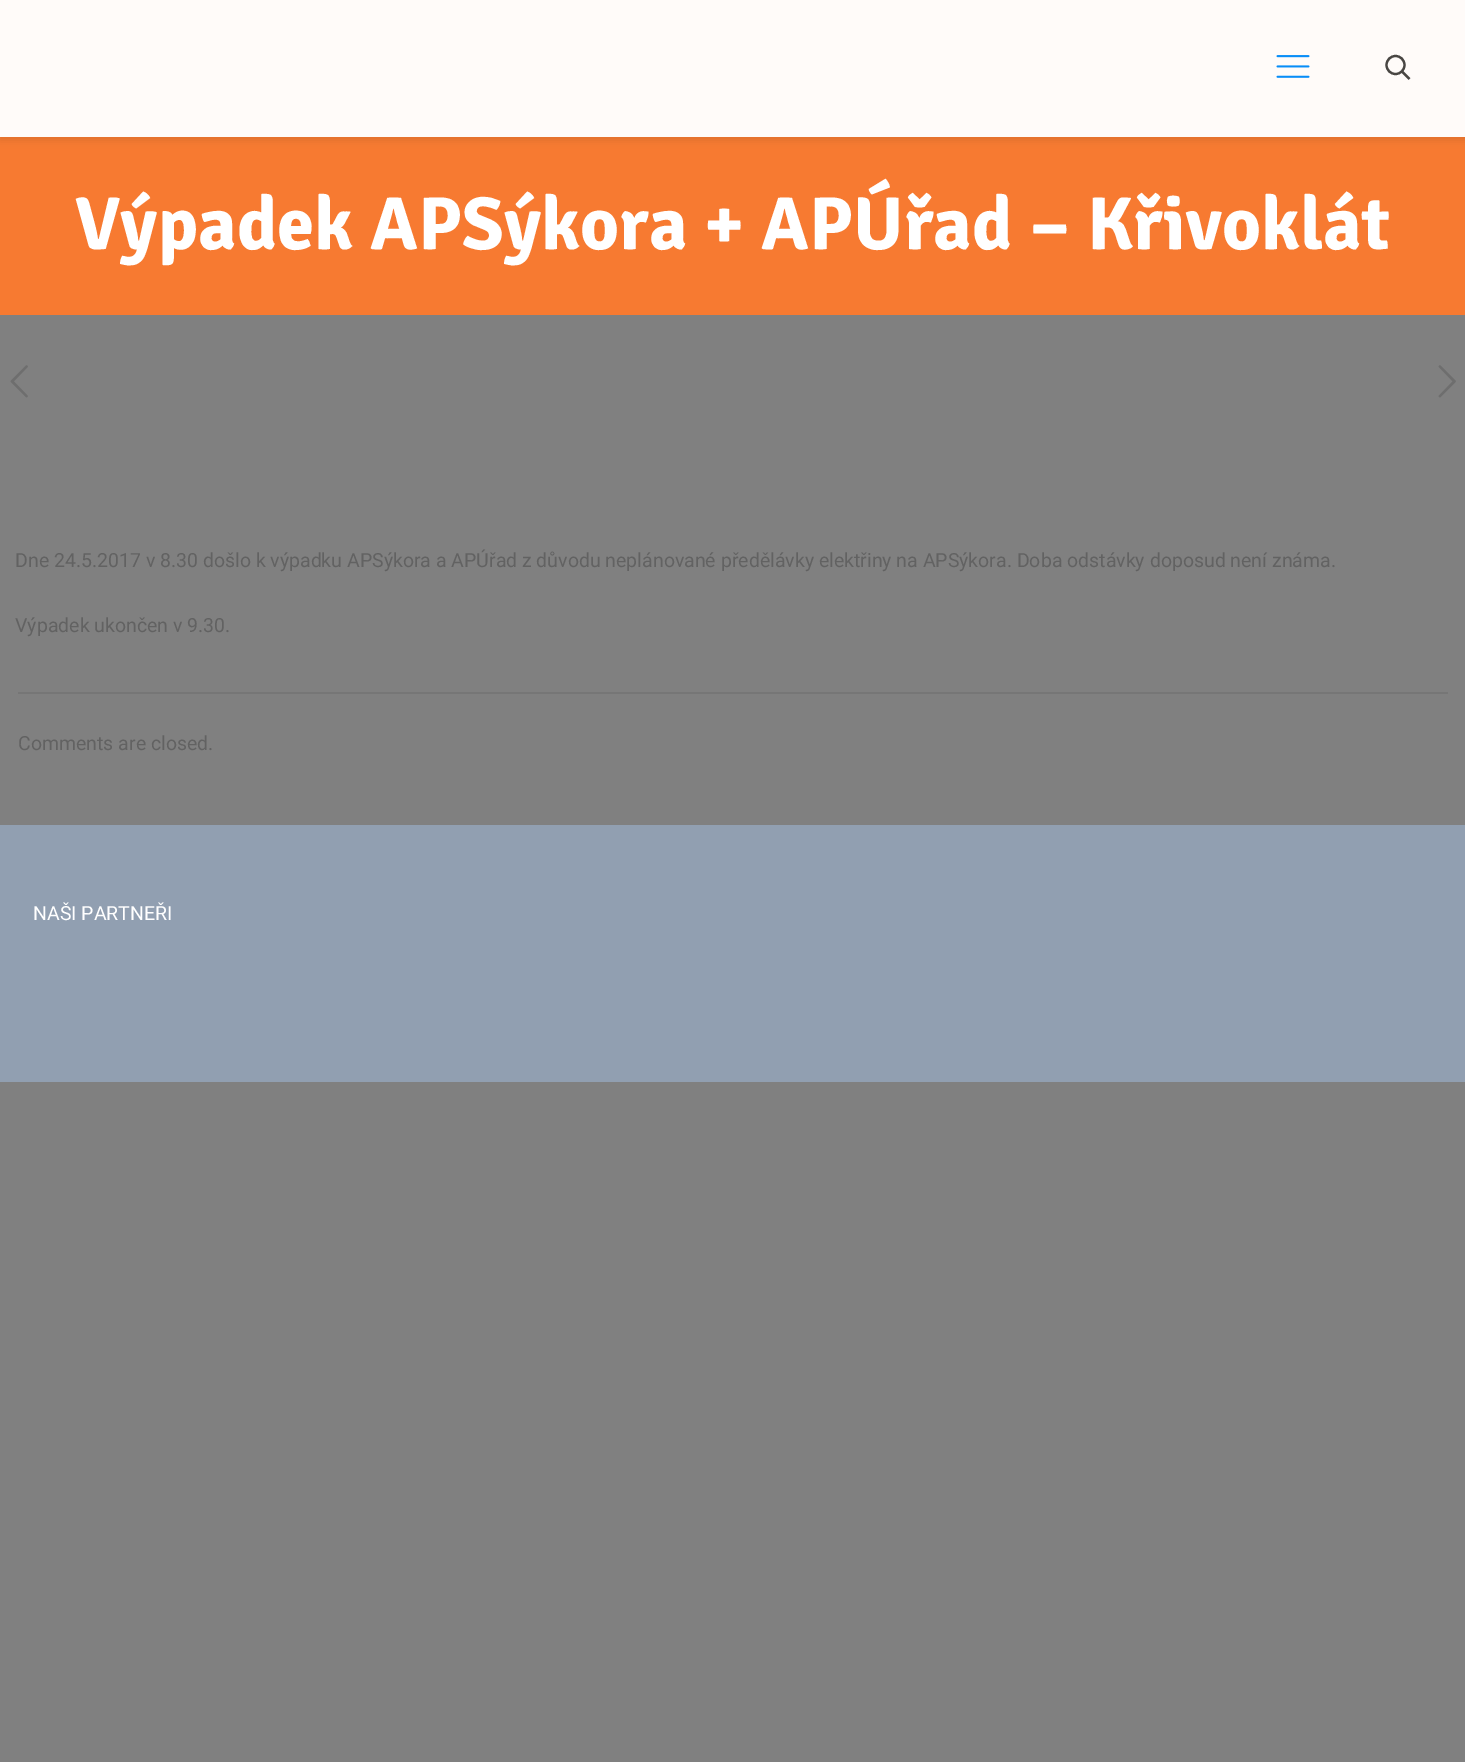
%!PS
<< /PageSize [1465 1762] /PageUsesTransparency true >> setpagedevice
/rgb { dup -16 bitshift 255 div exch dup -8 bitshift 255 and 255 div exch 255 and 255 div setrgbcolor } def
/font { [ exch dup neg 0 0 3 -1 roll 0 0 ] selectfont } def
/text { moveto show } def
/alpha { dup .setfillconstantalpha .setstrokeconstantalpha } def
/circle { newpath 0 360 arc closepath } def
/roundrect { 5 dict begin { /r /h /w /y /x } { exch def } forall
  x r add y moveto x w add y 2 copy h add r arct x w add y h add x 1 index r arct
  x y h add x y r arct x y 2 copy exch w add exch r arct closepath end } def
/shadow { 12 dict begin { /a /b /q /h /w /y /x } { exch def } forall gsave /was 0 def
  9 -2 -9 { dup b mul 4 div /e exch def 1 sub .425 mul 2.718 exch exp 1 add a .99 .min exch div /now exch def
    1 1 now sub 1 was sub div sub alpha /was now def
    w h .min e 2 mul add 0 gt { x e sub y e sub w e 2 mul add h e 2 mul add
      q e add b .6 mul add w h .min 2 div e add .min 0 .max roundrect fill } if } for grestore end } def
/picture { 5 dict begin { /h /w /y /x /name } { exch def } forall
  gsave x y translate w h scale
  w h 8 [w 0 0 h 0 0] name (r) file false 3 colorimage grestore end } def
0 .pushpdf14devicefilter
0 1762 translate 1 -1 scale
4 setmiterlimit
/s1 { /Signika-Bold 75 font 16#FFFFFF rgb } def
/s2 { /Roboto-Regular 19.5 font 16#626262 rgb } def
/s3 { /Roboto-Regular 19.5 font 16#FFFFFF rgb } def
16#808080 rgb
0 0 1465 1762 rectfill
16#F77A31 rgb
0 137 1465 178 rectfill
16#070401 rgb
0 3 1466 137 0 4 0.1 shadow
16#FFFBF9 rgb
0 0 1465 137 rectfill
(pic1.raw) 1276 55 34 23 picture
16#494643 rgb
2.2 setlinewidth
1395.5 65 9 circle stroke
1402 71.5 moveto 1409.5 79 lineto stroke
s1
(Výpadek APSýkora + APÚřad – Křivoklát) 75 249 text
(pic2.raw) 10 365 18 33 picture
(pic3.raw) 1438 365 18 33 picture
s2
(Dne 24.5.2017 v 8.30 došlo k výpadku APSýkora a APÚřad z důvodu neplánované předělávky elektřiny na APSýkora. Doba odstávky doposud není známa.) 15 567 text
(Výpadek ukončen v 9.30.) 15 632 text
16#767676 rgb
18 692 1430 2 rectfill
s2
(Comments are closed.) 18 750 text
16#919FB1 rgb
0 825 1465 257 rectfill
s3
(NAŠI PARTNEŘI) 33 920 text
.poppdf14devicefilter showpage
